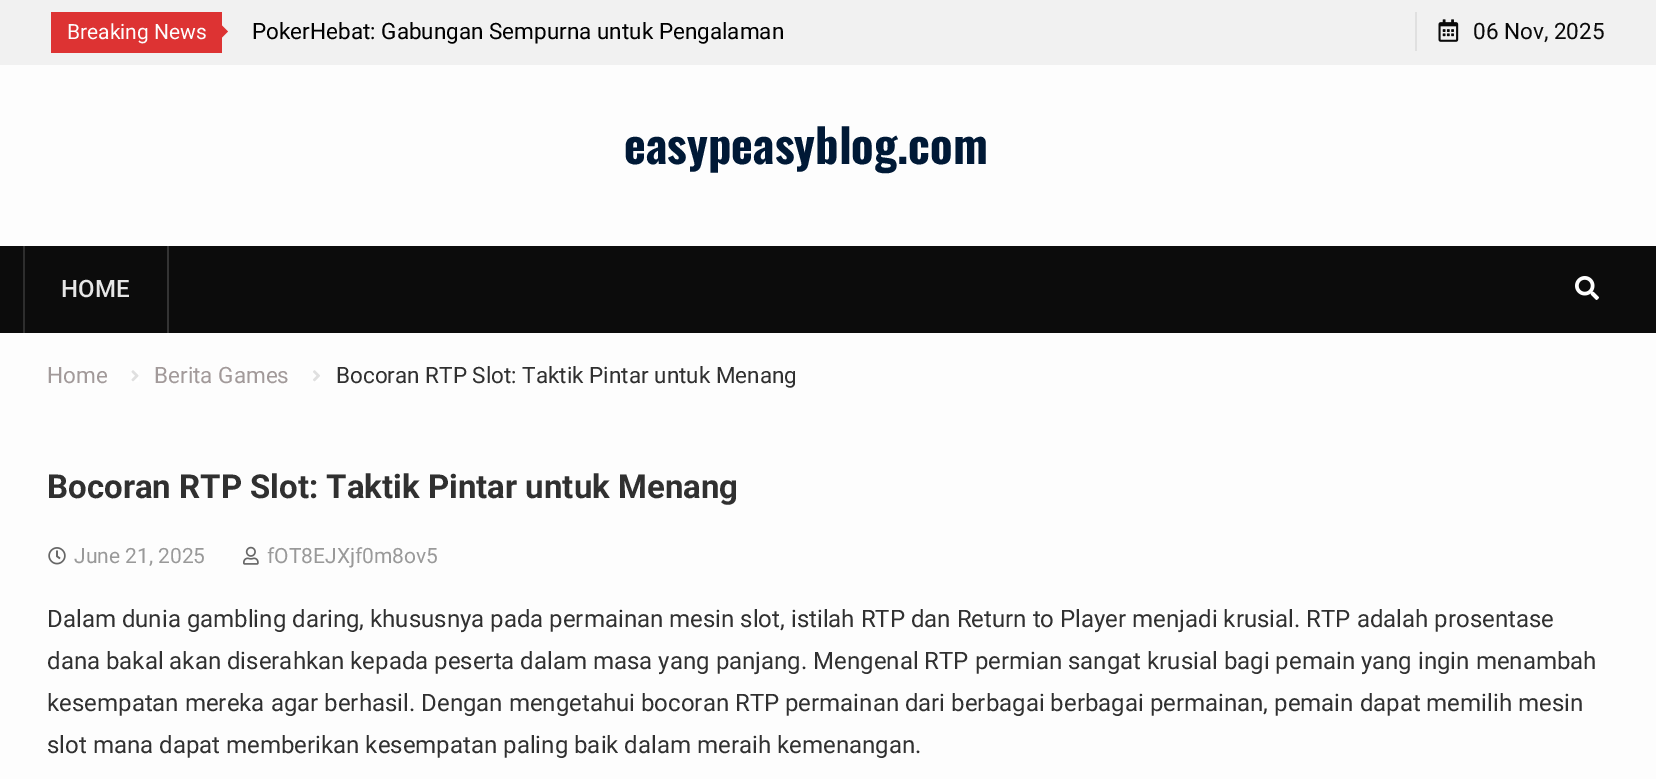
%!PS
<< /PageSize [1656 779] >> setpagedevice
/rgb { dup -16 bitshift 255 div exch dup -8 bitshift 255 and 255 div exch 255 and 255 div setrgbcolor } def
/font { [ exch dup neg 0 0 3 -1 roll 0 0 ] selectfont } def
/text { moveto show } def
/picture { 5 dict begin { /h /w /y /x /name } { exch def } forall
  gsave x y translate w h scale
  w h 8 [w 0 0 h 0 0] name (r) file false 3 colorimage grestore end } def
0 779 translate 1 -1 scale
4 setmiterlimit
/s1 { /Roboto-Regular 21 font 16#FDFDFD rgb } def
/s2 { /Roboto-Regular 22.5 font 16#000000 rgb } def
/s3 { /Roboto-Regular 22.5 font 16#0A0A0A rgb } def
/s4 { /Oswald-Bold 46.5 font 16#001936 rgb } def
/s5 { /Roboto-Medium 24 font 16#E6E6E6 rgb } def
/s6 { /Roboto-Regular 22.5 font 16#A29A9A rgb } def
/s7 { /Roboto-Regular 22.5 font 16#303030 rgb } def
/s8 { /Roboto-Bold 33 font 16#303030 rgb } def
/s9 { /Roboto-Regular 21 font 16#999999 rgb } def
/s10 { /Roboto-Regular 24 font 16#303030 rgb } def
16#FDFDFD rgb
0 0 1656 779 rectfill
16#F1F1F1 rgb
0 0 1656 65 rectfill
16#DD3333 rgb
51 12 171 41 rectfill
s1
(Breaking News) 67 39 text
16#DD3333 rgb
213 46.5 moveto 213 16.5 lineto 228 31.5 lineto closepath fill
s2
(PokerHebat: Gabungan Sempurna untuk Pengalaman) 252 39 text
16#E0E0E0 rgb
1415 12 2 39 rectfill
(pic1.raw) 1438 19 21 23 picture
s3
(06 Nov, 2025) 1473 39 text
s4
(easypeasyblog.com) 624 164 text
16#0C0C0C rgb
0 246 1656 87 rectfill
16#343434 rgb
167 246 2 87 rectfill
16#2E2E2E rgb
23 246 2 87 rectfill
s5
(HOME) 61 297 text
(pic2.raw) 1575 276 24 24 picture
s6
(Home) 47 383 text
(pic3.raw) 131 370 8 12 picture
(Berita Games) 154 383 text
(pic4.raw) 313 370 7 12 picture
s7
(Bocoran RTP Slot: Taktik Pintar untuk Menang) 336 383 text
s8
(Bocoran RTP Slot: Taktik Pintar untuk Menang) 47 498 text
(pic5.raw) 48 547 18 18 picture
s9
(June 21, 2025) 74 563 text
(pic6.raw) 243 546 16 19 picture
(fOT8EJXjf0m8ov5) 267 563 text
s10
(Dalam dunia gambling daring, khususnya pada permainan mesin slot, istilah RTP dan Return to Player menjadi krusial. RTP adalah prosentase) 47 627 text
(dana bakal akan diserahkan kepada peserta dalam masa yang panjang. Mengenal RTP permian sangat krusial bagi pemain yang ingin menambah) 47 669 text
(kesempatan mereka agar berhasil. Dengan mengetahui bocoran RTP permainan dari berbagai berbagai permainan, pemain dapat memilih mesin) 47 711 text
(slot mana dapat memberikan kesempatan paling baik dalam meraih kemenangan.) 47 753 text
showpage
